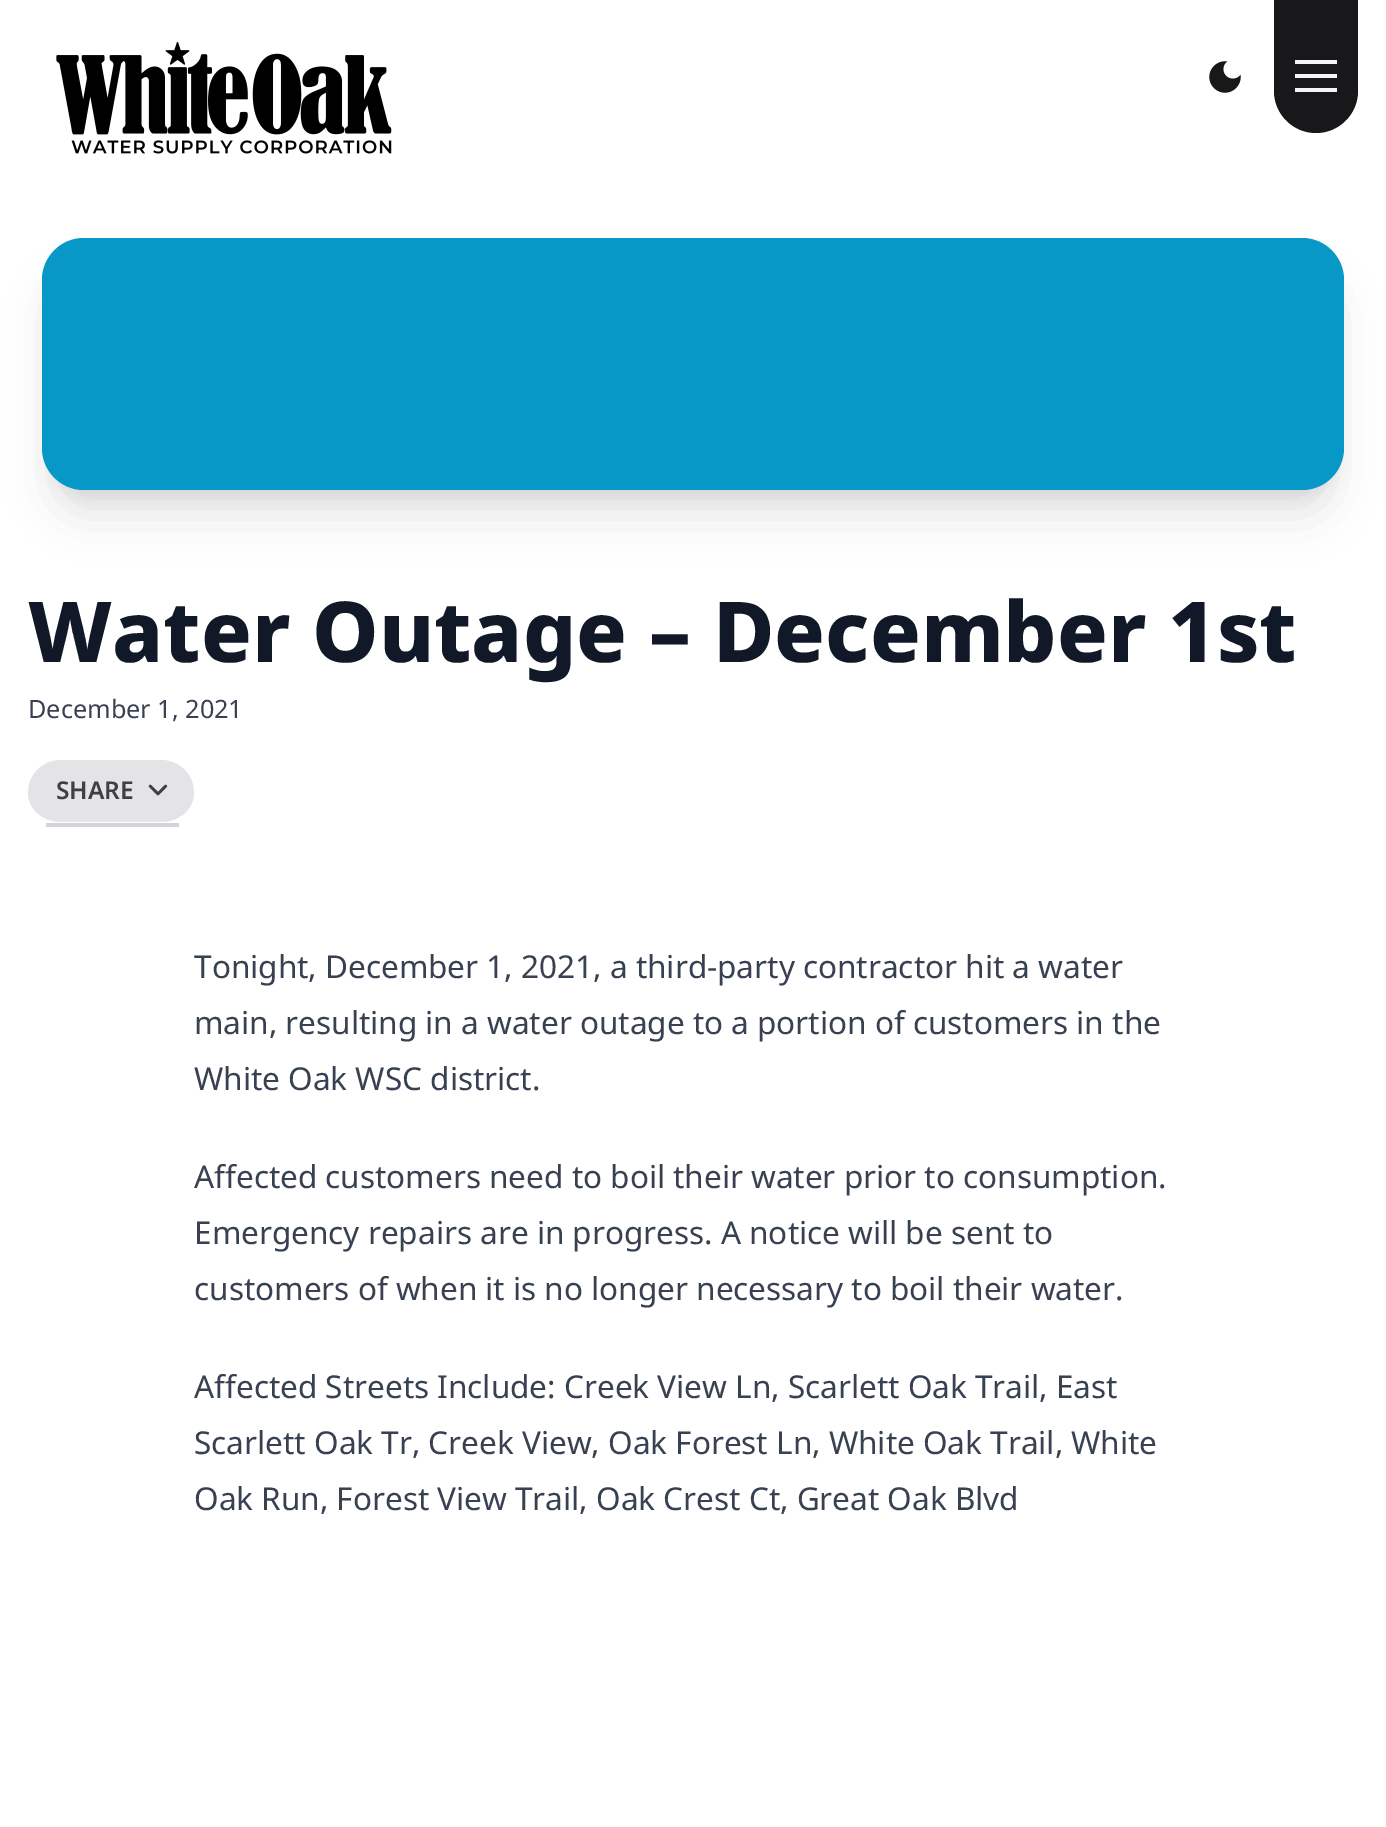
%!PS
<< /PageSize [1386 1827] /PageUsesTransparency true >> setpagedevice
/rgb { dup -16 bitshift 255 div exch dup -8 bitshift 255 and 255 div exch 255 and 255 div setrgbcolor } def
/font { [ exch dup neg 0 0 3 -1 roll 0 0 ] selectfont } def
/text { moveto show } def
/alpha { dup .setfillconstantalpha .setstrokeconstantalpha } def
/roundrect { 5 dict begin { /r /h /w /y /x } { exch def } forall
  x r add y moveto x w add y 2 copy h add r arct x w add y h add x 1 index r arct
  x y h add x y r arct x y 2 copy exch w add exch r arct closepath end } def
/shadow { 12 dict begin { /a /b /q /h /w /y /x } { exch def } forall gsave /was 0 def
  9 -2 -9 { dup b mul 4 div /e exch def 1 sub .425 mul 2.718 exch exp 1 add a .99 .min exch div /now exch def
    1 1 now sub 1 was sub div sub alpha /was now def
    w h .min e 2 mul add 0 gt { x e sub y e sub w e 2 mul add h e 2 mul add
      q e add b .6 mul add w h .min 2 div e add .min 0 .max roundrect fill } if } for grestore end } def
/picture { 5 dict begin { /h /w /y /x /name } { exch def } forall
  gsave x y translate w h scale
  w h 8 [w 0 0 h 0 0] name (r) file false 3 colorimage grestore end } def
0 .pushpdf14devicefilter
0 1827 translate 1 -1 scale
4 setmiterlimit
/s1 { /NotoSans-ExtraBold 84 font 16#111827 rgb } def
/s2 { /NotoSans-Regular 25.25 font 16#374151 rgb } def
/s3 { /NotoSans-SemiBold 24.5 font 16#3F3F46 rgb } def
/s4 { /NotoSans-Regular 31.5 font 16#374151 rgb } def
16#FFFFFF rgb
0 0 1386 1827 rectfill
(pic1.raw) 56 42 336 112 picture
(pic2.raw) 1209 61 32 32 picture
16#18181B rgb
1274 0 moveto 1358 0 lineto 1358 91 lineto 1358 114 1339 133 1316 133 curveto 1293 133 1274 114 1274 91 curveto closepath fill
16#F4F4F5 rgb
1295 60 42 4 rectfill
1295 74 42 4 rectfill
1295 88 42 4 rectfill
16#000000 rgb
53 263 1281 231 32 9 0.1 shadow
51 282 1284 234 33 22 0.1 shadow
16#0898C8 rgb
42 238 1302 252 42 roundrect fill
s1
(Water Outage – December 1st) 28 662 text
s2
(December 1, 2021) 28 718 text
16#E4E4E7 rgb
61 760 moveto 161 760 lineto 179 760 194 774 194 793 curveto 194 809 179 822 161 822 curveto 61 822 lineto 43 822 28 809 28 793 curveto 28 774 43 760 61 760 curveto closepath fill
16#D4D4D8 rgb
46 823 133 4 rectfill
s3
(SHARE) 56 799 text
(pic3.raw) 148 784 20 12 picture
s4
(Tonight, December 1, 2021, a third-party contractor hit a water) 194 978 text
(main, resulting in a water outage to a portion of customers in the) 194 1034 text
(White Oak WSC district.) 194 1090 text
(Affected customers need to boil their water prior to consumption.) 194 1188 text
(Emergency repairs are in progress. A notice will be sent to) 194 1244 text
(customers of when it is no longer necessary to boil their water.) 194 1300 text
(Affected Streets Include: Creek View Ln, Scarlett Oak Trail, East) 194 1398 text
(Scarlett Oak Tr, Creek View, Oak Forest Ln, White Oak Trail, White) 194 1454 text
(Oak Run, Forest View Trail, Oak Crest Ct, Great Oak Blvd) 194 1510 text
.poppdf14devicefilter showpage
